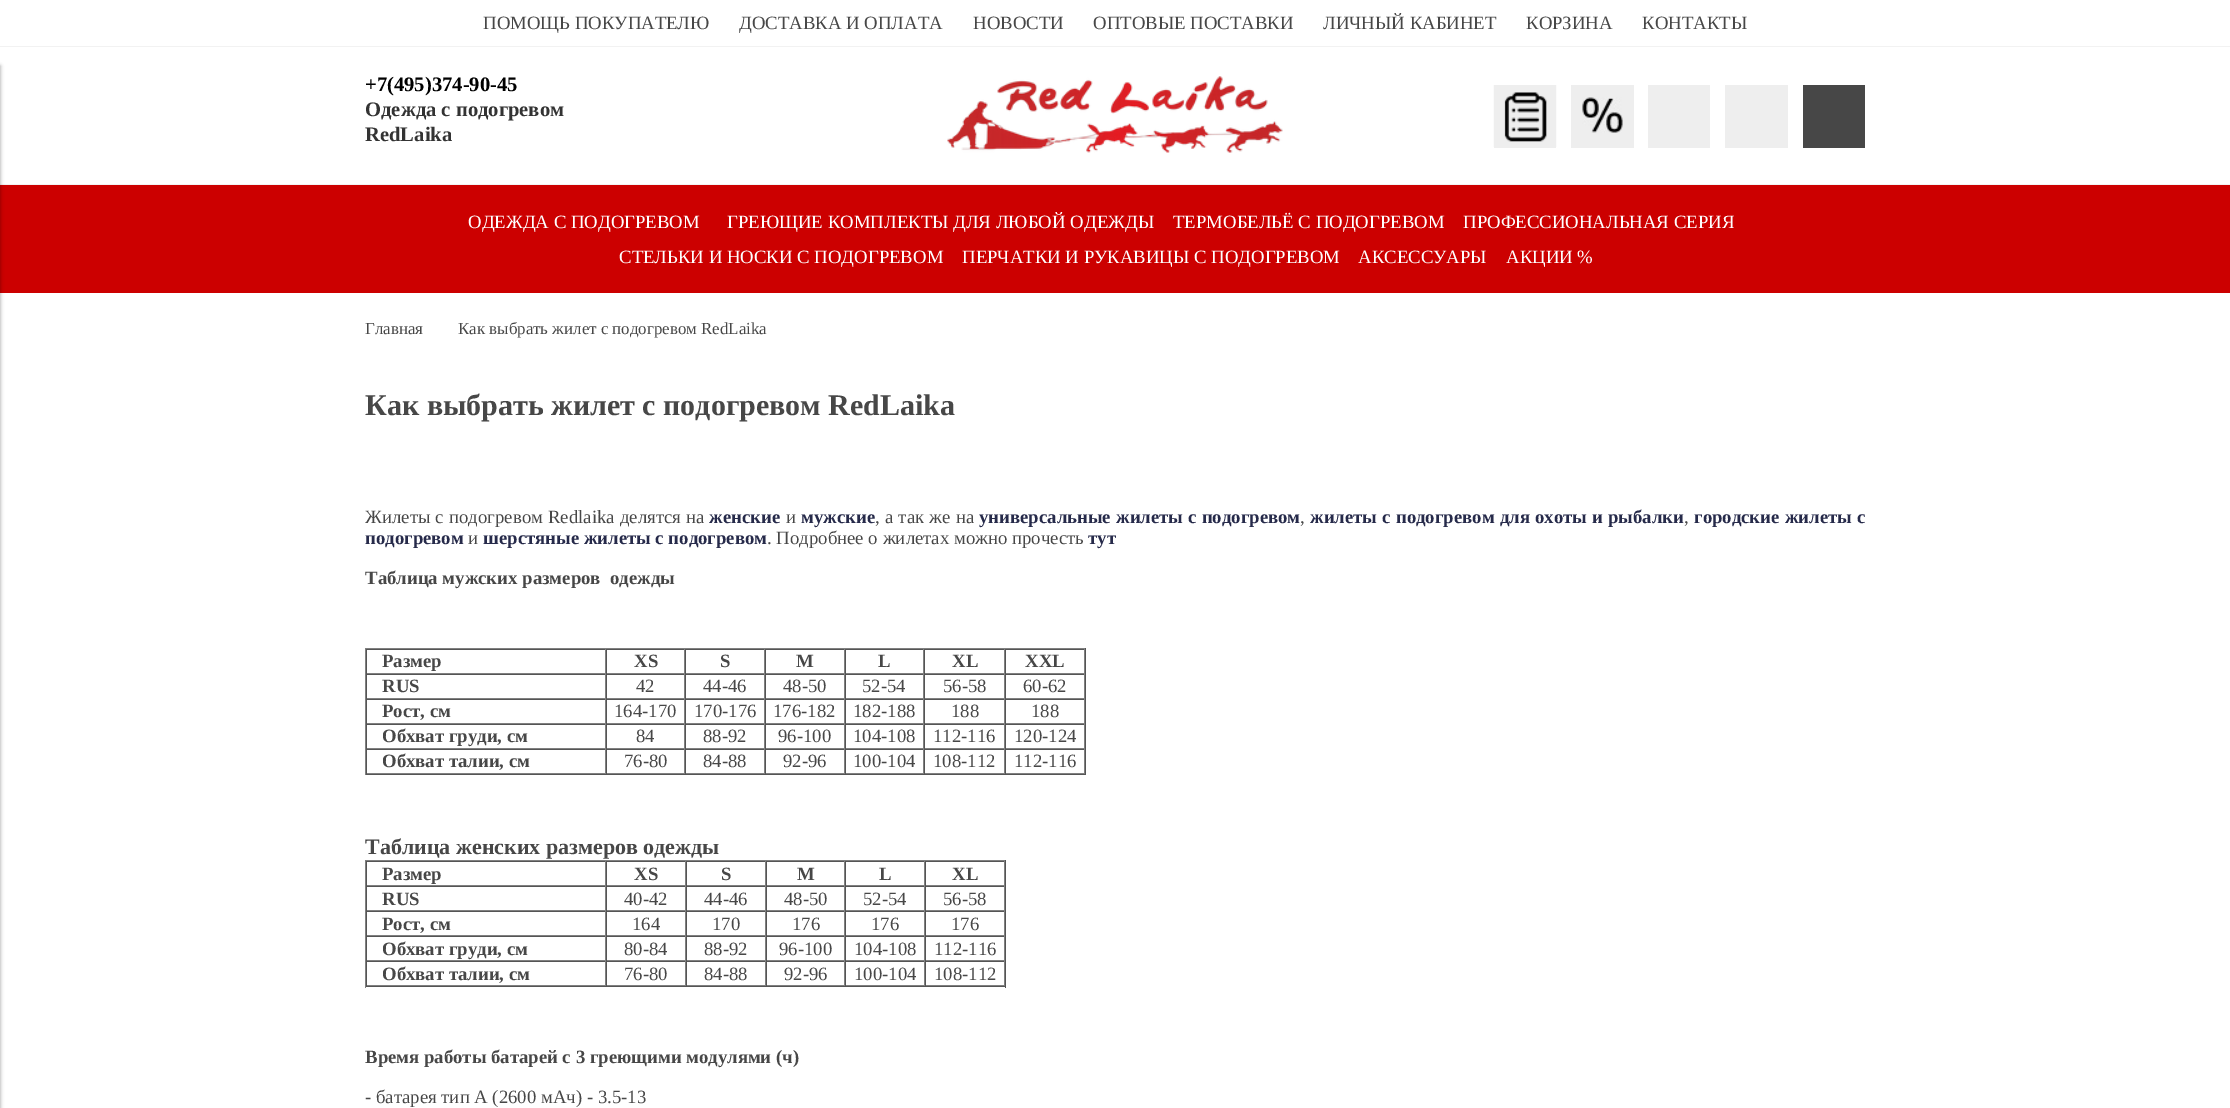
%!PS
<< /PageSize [2230 1108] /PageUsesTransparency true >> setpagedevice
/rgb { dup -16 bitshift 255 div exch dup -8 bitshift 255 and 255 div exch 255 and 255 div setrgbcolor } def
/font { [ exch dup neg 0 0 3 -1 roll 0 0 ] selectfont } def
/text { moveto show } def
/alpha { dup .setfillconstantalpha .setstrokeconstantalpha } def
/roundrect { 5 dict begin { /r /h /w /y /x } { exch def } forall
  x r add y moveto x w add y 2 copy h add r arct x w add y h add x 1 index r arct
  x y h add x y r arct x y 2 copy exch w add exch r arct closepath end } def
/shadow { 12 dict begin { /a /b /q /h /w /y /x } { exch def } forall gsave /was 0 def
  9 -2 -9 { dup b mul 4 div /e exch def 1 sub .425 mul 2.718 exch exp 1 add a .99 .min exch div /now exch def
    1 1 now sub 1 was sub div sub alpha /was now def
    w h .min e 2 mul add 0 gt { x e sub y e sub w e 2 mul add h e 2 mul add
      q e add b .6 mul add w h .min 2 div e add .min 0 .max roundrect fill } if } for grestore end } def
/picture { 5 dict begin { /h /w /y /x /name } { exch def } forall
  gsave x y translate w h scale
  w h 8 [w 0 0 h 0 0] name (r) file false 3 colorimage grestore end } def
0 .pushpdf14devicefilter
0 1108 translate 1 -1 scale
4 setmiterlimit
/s1 { /LiberationSerif-Regular 18.75 font 16#474747 rgb } def
/s2 { /LiberationSerif-Bold 20.6 font 16#000000 rgb } def
/s3 { /LiberationSerif-Bold 20.6 font 16#333333 rgb } def
/s4 { /LiberationSerif-Regular 18.75 font 16#FFFFFF rgb } def
/s5 { /LiberationSerif-Regular 16.9 font 16#474747 rgb } def
/s6 { /LiberationSerif-Bold 30 font 16#474747 rgb } def
/s7 { /LiberationSerif-Bold 18.75 font 16#262A4A rgb } def
/s8 { /LiberationSerif-Bold 18.75 font 16#474747 rgb } def
/s9 { /LiberationSerif-Bold 22 font 16#474747 rgb } def
16#FFFFFF rgb
0 0 2230 1108 rectfill
16#F2F2F2 rgb
0 184 2230 1 rectfill
16#CC0000 rgb
0 185 2230 108 rectfill
16#000000 rgb
-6 66 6 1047 0 2 0.4 shadow
16#F2F2F2 rgb
0 46 2230 1 rectfill
s1
(ПОМОЩЬ ПОКУПАТЕЛЮ) 483 29 text
(ДОСТАВКА И ОПЛАТА) 739 29 text
(НОВОСТИ) 973 29 text
(ОПТОВЫЕ ПОСТАВКИ) 1093 29 text
(ЛИЧНЫЙ КАБИНЕТ) 1323 29 text
(КОРЗИНА) 1526 29 text
(КОНТАКТЫ) 1642 29 text
s2
(+7\(495\)374-90-45) 365 91 text
s3
(Одежда с подогревом) 365 116 text
(RedLaika) 365 141 text
(pic1.raw) 947 76 336 77 picture
16#EEEEEE rgb
1494 147 62 1 rectfill
(pic2.raw) 1493 85 64 62 picture
1571 85 63 63 rectfill
(pic3.raw) 1582 97 41 36 picture
1648 85 62 63 rectfill
1725 85 63 63 rectfill
16#474747 rgb
1803 85 62 63 rectfill
s4
(ОДЕЖДА С ПОДОГРЕВОМ) 468 228 text
(ГРЕЮЩИЕ КОМПЛЕКТЫ ДЛЯ ЛЮБОЙ ОДЕЖДЫ) 727 228 text
(ТЕРМОБЕЛЬЁ С ПОДОГРЕВОМ) 1173 228 text
(ПРОФЕССИОНАЛЬНАЯ СЕРИЯ) 1463 228 text
(СТЕЛЬКИ И НОСКИ С ПОДОГРЕВОМ) 619 263 text
(ПЕРЧАТКИ И РУКАВИЦЫ С ПОДОГРЕВОМ) 962 263 text
(АКСЕССУАРЫ) 1358 263 text
(АКЦИИ %) 1506 263 text
s5
(Главная) 365 334 text
(Как выбрать жилет с подогревом RedLaika) 458 334 text
s6
(Как выбрать жилет с подогревом RedLaika) 365 415 text
/LiberationSerif-Regular 18.75 font
365 523 moveto 0.5 0 32 (Жилеты с подогревом Redlaika делятся на) widthshow
s7
(женские) 709 523 text
s1
(и) 786 523 text
s7
(мужские) 801 523 text
/LiberationSerif-Regular 18.75 font
16#474747 rgb
875 523 moveto 0.5 0 32 (, а так же на) widthshow
/LiberationSerif-Bold 18.75 font
16#262A4A rgb
979 523 moveto 0.5 0 32 (универсальные жилеты с подогревом) widthshow
s1
(,) 1300 523 text
/LiberationSerif-Bold 18.75 font
16#262A4A rgb
1310 523 moveto 0.5 0 32 (жилеты с подогревом для охоты и рыбалки) widthshow
s1
(,) 1684 523 text
/LiberationSerif-Bold 18.75 font
16#262A4A rgb
1694 523 moveto 0.5 0 32 (городские жилеты с) widthshow
(подогревом) 365 544 text
s1
(и) 468 544 text
s7
(шерстяные жилеты с подогревом) 483 544 text
s1
(. Подробнее о жилетах можно прочесть) 767 544 text
s7
(тут) 1088 544 text
s8
(Таблица мужских размеров  одежды) 365 584 text
16#808080 rgb
365 648 721 1 rectfill
16#555555 rgb
1085 648 1 127 rectfill
365 774 721 1 rectfill
16#808080 rgb
365 648 1 127 rectfill
16#555555 rgb
366 649 719 1 rectfill
16#808080 rgb
605 649 1 25 rectfill
366 673 240 1 rectfill
16#555555 rgb
366 649 1 25 rectfill
s8
(Размер) 382 667 text
16#808080 rgb
684 649 1 25 rectfill
606 673 79 1 rectfill
16#555555 rgb
606 649 1 25 rectfill
s8
(XS) 634 667 text
16#808080 rgb
764 649 1 25 rectfill
685 673 80 1 rectfill
16#555555 rgb
685 649 1 25 rectfill
s8
(S) 720 667 text
16#808080 rgb
844 649 1 25 rectfill
765 673 80 1 rectfill
16#555555 rgb
765 649 1 25 rectfill
s8
(M) 796 667 text
16#808080 rgb
923 649 1 25 rectfill
845 673 79 1 rectfill
16#555555 rgb
845 649 1 25 rectfill
s8
(L) 878 667 text
16#808080 rgb
1004 649 1 25 rectfill
924 673 81 1 rectfill
16#555555 rgb
924 649 1 25 rectfill
s8
(XL) 952 667 text
16#808080 rgb
1084 649 1 25 rectfill
1005 673 80 1 rectfill
16#555555 rgb
1005 649 1 25 rectfill
s8
(XXL) 1025 667 text
16#555555 rgb
366 674 719 1 rectfill
16#808080 rgb
605 674 1 25 rectfill
366 698 240 1 rectfill
16#555555 rgb
366 674 1 25 rectfill
s8
(RUS) 382 692 text
16#808080 rgb
684 674 1 25 rectfill
606 698 79 1 rectfill
16#555555 rgb
606 674 1 25 rectfill
s1
(42) 636 692 text
16#808080 rgb
764 674 1 25 rectfill
685 698 80 1 rectfill
16#555555 rgb
685 674 1 25 rectfill
s1
(44-46) 703 692 text
16#808080 rgb
844 674 1 25 rectfill
765 698 80 1 rectfill
16#555555 rgb
765 674 1 25 rectfill
s1
(48-50) 783 692 text
16#808080 rgb
923 674 1 25 rectfill
845 698 79 1 rectfill
16#555555 rgb
845 674 1 25 rectfill
s1
(52-54) 862 692 text
16#808080 rgb
1004 674 1 25 rectfill
924 698 81 1 rectfill
16#555555 rgb
924 674 1 25 rectfill
s1
(56-58) 943 692 text
16#808080 rgb
1084 674 1 25 rectfill
1005 698 80 1 rectfill
16#555555 rgb
1005 674 1 25 rectfill
s1
(60-62) 1023 692 text
16#555555 rgb
366 699 719 1 rectfill
16#808080 rgb
605 699 1 25 rectfill
366 723 240 1 rectfill
16#555555 rgb
366 699 1 25 rectfill
s8
(Рост, см) 382 717 text
16#808080 rgb
684 699 1 25 rectfill
606 723 79 1 rectfill
16#555555 rgb
606 699 1 25 rectfill
s1
(164-170) 614 717 text
16#808080 rgb
764 699 1 25 rectfill
685 723 80 1 rectfill
16#555555 rgb
685 699 1 25 rectfill
s1
(170-176) 694 717 text
16#808080 rgb
844 699 1 25 rectfill
765 723 80 1 rectfill
16#555555 rgb
765 699 1 25 rectfill
s1
(176-182) 773 717 text
16#808080 rgb
923 699 1 25 rectfill
845 723 79 1 rectfill
16#555555 rgb
845 699 1 25 rectfill
s1
(182-188) 853 717 text
16#808080 rgb
1004 699 1 25 rectfill
924 723 81 1 rectfill
16#555555 rgb
924 699 1 25 rectfill
s1
(188) 951 717 text
16#808080 rgb
1084 699 1 25 rectfill
1005 723 80 1 rectfill
16#555555 rgb
1005 699 1 25 rectfill
s1
(188) 1031 717 text
16#555555 rgb
366 724 719 1 rectfill
16#808080 rgb
605 724 1 25 rectfill
366 748 240 1 rectfill
16#555555 rgb
366 724 1 25 rectfill
s8
(Обхват груди, см) 382 742 text
16#808080 rgb
684 724 1 25 rectfill
606 748 79 1 rectfill
16#555555 rgb
606 724 1 25 rectfill
s1
(84) 636 742 text
16#808080 rgb
764 724 1 25 rectfill
685 748 80 1 rectfill
16#555555 rgb
685 724 1 25 rectfill
s1
(88-92) 703 742 text
16#808080 rgb
844 724 1 25 rectfill
765 748 80 1 rectfill
16#555555 rgb
765 724 1 25 rectfill
s1
(96-100) 778 742 text
16#808080 rgb
923 724 1 25 rectfill
845 748 79 1 rectfill
16#555555 rgb
845 724 1 25 rectfill
s1
(104-108) 853 742 text
16#808080 rgb
1004 724 1 25 rectfill
924 748 81 1 rectfill
16#555555 rgb
924 724 1 25 rectfill
s1
(112-116) 933 742 text
16#808080 rgb
1084 724 1 25 rectfill
1005 748 80 1 rectfill
16#555555 rgb
1005 724 1 25 rectfill
s1
(120-124) 1014 742 text
16#555555 rgb
366 749 719 1 rectfill
16#808080 rgb
605 749 1 25 rectfill
366 773 240 1 rectfill
16#555555 rgb
366 749 1 25 rectfill
s8
(Обхват талии, см) 382 767 text
16#808080 rgb
684 749 1 25 rectfill
606 773 79 1 rectfill
16#555555 rgb
606 749 1 25 rectfill
s1
(76-80) 624 767 text
16#808080 rgb
764 749 1 25 rectfill
685 773 80 1 rectfill
16#555555 rgb
685 749 1 25 rectfill
s1
(84-88) 703 767 text
16#808080 rgb
844 749 1 25 rectfill
765 773 80 1 rectfill
16#555555 rgb
765 749 1 25 rectfill
s1
(92-96) 783 767 text
16#808080 rgb
923 749 1 25 rectfill
845 773 79 1 rectfill
16#555555 rgb
845 749 1 25 rectfill
s1
(100-104) 853 767 text
16#808080 rgb
1004 749 1 25 rectfill
924 773 81 1 rectfill
16#555555 rgb
924 749 1 25 rectfill
s1
(108-112) 933 767 text
16#808080 rgb
1084 749 1 25 rectfill
1005 773 80 1 rectfill
16#555555 rgb
1005 749 1 25 rectfill
s1
(112-116) 1014 767 text
s9
(Таблица женских размеров одежды) 365 854 text
16#808080 rgb
365 860 641 1 rectfill
16#555555 rgb
1005 860 1 128 rectfill
365 986 641 1 rectfill
16#808080 rgb
365 860 1 128 rectfill
16#555555 rgb
366 861 639 1 rectfill
16#808080 rgb
605 861 1 25 rectfill
366 885 240 1 rectfill
16#555555 rgb
366 861 1 25 rectfill
s8
(Размер) 382 880 text
16#808080 rgb
685 861 1 25 rectfill
606 885 80 1 rectfill
16#555555 rgb
606 861 1 25 rectfill
s8
(XS) 634 880 text
16#808080 rgb
765 861 1 25 rectfill
686 885 80 1 rectfill
16#555555 rgb
686 861 1 25 rectfill
s8
(S) 721 880 text
16#808080 rgb
844 861 1 25 rectfill
766 885 79 1 rectfill
16#555555 rgb
766 861 1 25 rectfill
s8
(M) 797 880 text
16#808080 rgb
924 861 1 25 rectfill
845 885 80 1 rectfill
16#555555 rgb
845 861 1 25 rectfill
s8
(L) 879 880 text
16#808080 rgb
1004 861 1 25 rectfill
925 885 80 1 rectfill
16#555555 rgb
925 861 1 25 rectfill
s8
(XL) 952 880 text
16#555555 rgb
366 886 639 1 rectfill
16#808080 rgb
605 886 1 25 rectfill
366 910 240 1 rectfill
16#555555 rgb
366 886 1 25 rectfill
s8
(RUS) 382 905 text
16#808080 rgb
685 886 1 25 rectfill
606 910 80 1 rectfill
16#555555 rgb
606 886 1 25 rectfill
s1
(40-42) 624 905 text
16#808080 rgb
765 886 1 25 rectfill
686 910 80 1 rectfill
16#555555 rgb
686 886 1 25 rectfill
s1
(44-46) 704 905 text
16#808080 rgb
844 886 1 25 rectfill
766 910 79 1 rectfill
16#555555 rgb
766 886 1 25 rectfill
s1
(48-50) 784 905 text
16#808080 rgb
924 886 1 25 rectfill
845 910 80 1 rectfill
16#555555 rgb
845 886 1 25 rectfill
s1
(52-54) 863 905 text
16#808080 rgb
1004 886 1 25 rectfill
925 910 80 1 rectfill
16#555555 rgb
925 886 1 25 rectfill
s1
(56-58) 943 905 text
16#555555 rgb
366 911 639 1 rectfill
16#808080 rgb
605 911 1 25 rectfill
366 935 240 1 rectfill
16#555555 rgb
366 911 1 25 rectfill
s8
(Рост, см) 382 930 text
16#808080 rgb
685 911 1 25 rectfill
606 935 80 1 rectfill
16#555555 rgb
606 911 1 25 rectfill
s1
(164) 632 930 text
16#808080 rgb
765 911 1 25 rectfill
686 935 80 1 rectfill
16#555555 rgb
686 911 1 25 rectfill
s1
(170) 712 930 text
16#808080 rgb
844 911 1 25 rectfill
766 935 79 1 rectfill
16#555555 rgb
766 911 1 25 rectfill
s1
(176) 792 930 text
16#808080 rgb
924 911 1 25 rectfill
845 935 80 1 rectfill
16#555555 rgb
845 911 1 25 rectfill
s1
(176) 871 930 text
16#808080 rgb
1004 911 1 25 rectfill
925 935 80 1 rectfill
16#555555 rgb
925 911 1 25 rectfill
s1
(176) 951 930 text
16#555555 rgb
366 936 639 1 rectfill
16#808080 rgb
605 936 1 25 rectfill
366 960 240 1 rectfill
16#555555 rgb
366 936 1 25 rectfill
s8
(Обхват груди, см) 382 955 text
16#808080 rgb
685 936 1 25 rectfill
606 960 80 1 rectfill
16#555555 rgb
606 936 1 25 rectfill
s1
(80-84) 624 955 text
16#808080 rgb
765 936 1 25 rectfill
686 960 80 1 rectfill
16#555555 rgb
686 936 1 25 rectfill
s1
(88-92) 704 955 text
16#808080 rgb
844 936 1 25 rectfill
766 960 79 1 rectfill
16#555555 rgb
766 936 1 25 rectfill
s1
(96-100) 779 955 text
16#808080 rgb
924 936 1 25 rectfill
845 960 80 1 rectfill
16#555555 rgb
845 936 1 25 rectfill
s1
(104-108) 854 955 text
16#808080 rgb
1004 936 1 25 rectfill
925 960 80 1 rectfill
16#555555 rgb
925 936 1 25 rectfill
s1
(112-116) 934 955 text
16#555555 rgb
366 961 639 1 rectfill
16#808080 rgb
605 961 1 25 rectfill
366 985 240 1 rectfill
16#555555 rgb
366 961 1 25 rectfill
s8
(Обхват талии, см) 382 980 text
16#808080 rgb
685 961 1 25 rectfill
606 985 80 1 rectfill
16#555555 rgb
606 961 1 25 rectfill
s1
(76-80) 624 980 text
16#808080 rgb
765 961 1 25 rectfill
686 985 80 1 rectfill
16#555555 rgb
686 961 1 25 rectfill
s1
(84-88) 704 980 text
16#808080 rgb
844 961 1 25 rectfill
766 985 79 1 rectfill
16#555555 rgb
766 961 1 25 rectfill
s1
(92-96) 784 980 text
16#808080 rgb
924 961 1 25 rectfill
845 985 80 1 rectfill
16#555555 rgb
845 961 1 25 rectfill
s1
(100-104) 854 980 text
16#808080 rgb
1004 961 1 25 rectfill
925 985 80 1 rectfill
16#555555 rgb
925 961 1 25 rectfill
s1
(108-112) 934 980 text
s8
(Время работы батарей с 3 греющими модулями \(ч\)) 365 1063 text
s1
(- батарея тип А \(2600 мАч\) - 3.5-13) 365 1103 text
.poppdf14devicefilter showpage
